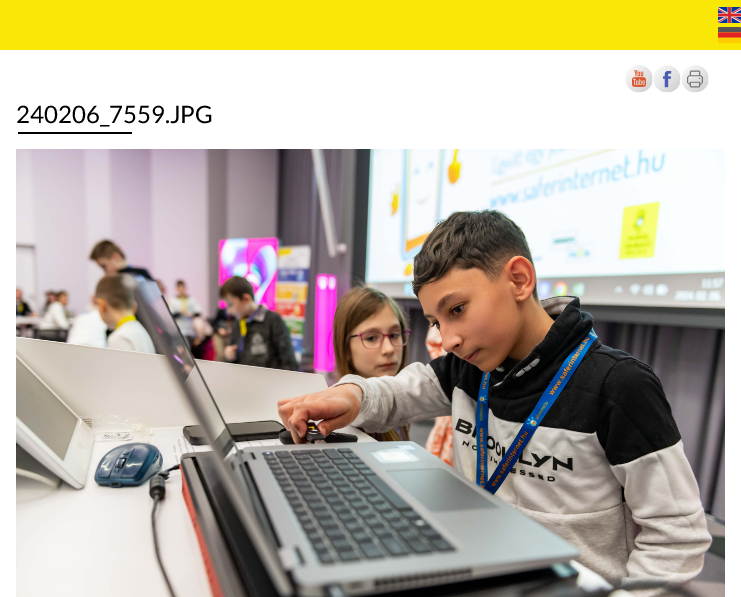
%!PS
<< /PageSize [741 597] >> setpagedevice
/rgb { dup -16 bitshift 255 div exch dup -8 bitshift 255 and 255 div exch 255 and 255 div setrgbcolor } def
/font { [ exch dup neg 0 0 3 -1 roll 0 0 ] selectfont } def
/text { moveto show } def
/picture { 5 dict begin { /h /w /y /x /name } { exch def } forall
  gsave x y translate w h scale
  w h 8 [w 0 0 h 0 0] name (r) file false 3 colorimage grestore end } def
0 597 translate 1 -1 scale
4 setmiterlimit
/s1 { /Lato-Regular 24 font 16#000000 rgb } def
16#FFFFFF rgb
0 0 741 597 rectfill
16#F9E805 rgb
0 0 741 50 rectfill
(pic1.raw) 718 7 23 16 picture
(pic2.raw) 718 27 23 16 picture
(pic3.raw) 625 65 28 28 picture
(pic4.raw) 653 65 28 28 picture
(pic5.raw) 681 65 28 28 picture
s1
(240206_7559.JPG) 16 123 text
18 132 114 2 rectfill
(pic6.raw) 16 149 709 448 picture
showpage
